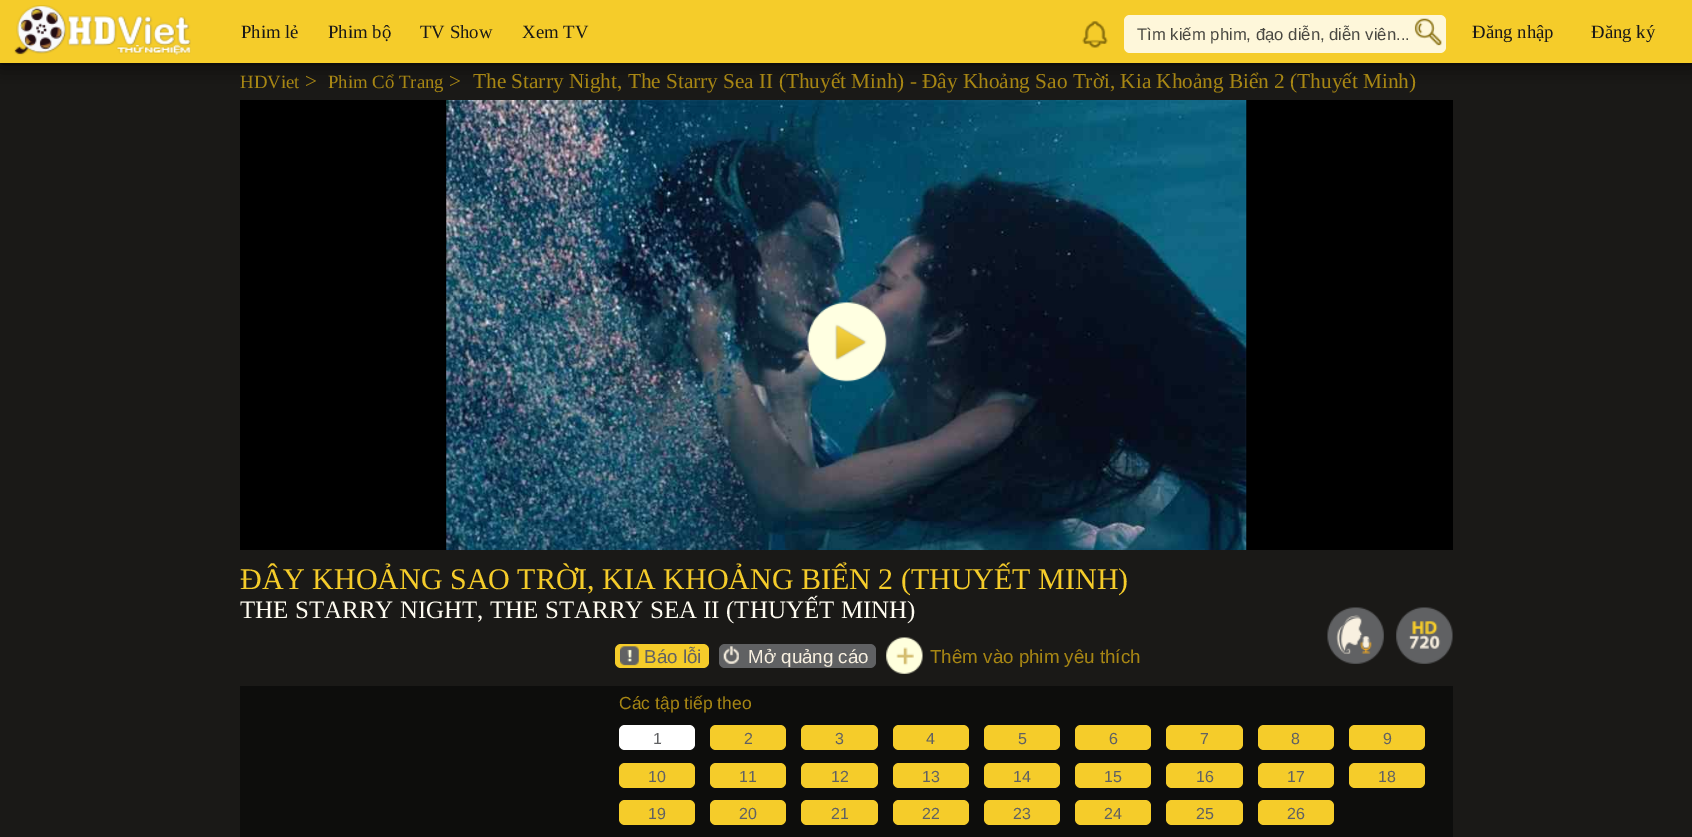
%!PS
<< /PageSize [1692 837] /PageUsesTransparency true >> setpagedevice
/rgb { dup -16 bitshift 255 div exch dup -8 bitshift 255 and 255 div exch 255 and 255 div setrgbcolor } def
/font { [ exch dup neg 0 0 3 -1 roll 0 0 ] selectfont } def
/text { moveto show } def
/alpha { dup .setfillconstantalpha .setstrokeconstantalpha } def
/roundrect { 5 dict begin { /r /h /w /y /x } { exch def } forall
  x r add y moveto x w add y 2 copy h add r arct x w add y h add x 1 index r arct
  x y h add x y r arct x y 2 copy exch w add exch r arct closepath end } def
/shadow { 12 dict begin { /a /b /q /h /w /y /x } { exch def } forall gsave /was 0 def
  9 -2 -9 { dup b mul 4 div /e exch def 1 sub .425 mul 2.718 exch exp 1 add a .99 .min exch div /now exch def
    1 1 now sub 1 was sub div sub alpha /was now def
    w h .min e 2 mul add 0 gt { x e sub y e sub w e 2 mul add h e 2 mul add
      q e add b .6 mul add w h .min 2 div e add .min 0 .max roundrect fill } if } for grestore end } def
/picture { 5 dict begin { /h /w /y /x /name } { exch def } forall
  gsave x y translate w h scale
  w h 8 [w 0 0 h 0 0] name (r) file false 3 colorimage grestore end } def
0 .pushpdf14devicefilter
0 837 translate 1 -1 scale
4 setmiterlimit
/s1 { /LiberationSerif-Regular 18.75 font 16#1A1918 rgb } def
/s2 { /LiberationSans-Regular 16.7 font 16#494841 rgb } def
/s3 { /LiberationSerif-Regular 18.75 font 16#A78613 rgb } def
/s4 { /LiberationSerif-Regular 21.25 font 16#A78613 rgb } def
/s5 { /LiberationSerif-Regular 30 font 16#F5CC2A rgb } def
/s6 { /LiberationSerif-Regular 25 font 16#FEFBF0 rgb } def
/s7 { /LiberationSans-Regular 18.75 font 16#606163 rgb } def
/s8 { /LiberationSans-Regular 18.75 font 16#F8F0E0 rgb } def
/s9 { /LiberationSans-Regular 18.75 font 16#A78613 rgb } def
/s10 { /LiberationSans-Regular 17.5 font 16#A78613 rgb } def
/s11 { /LiberationSans-Regular 16 font 16#606163 rgb } def
16#1A1917 rgb
0 0 1692 837 rectfill
16#000000 rgb
0 0 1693 63 0 9.5 1 shadow
16#F5CC2A rgb
0 0 1692 63 rectfill
(pic1.raw) 14 5 177 51 picture
s1
(Phim lẻ) 241 38 text
(Phim bộ) 328 38 text
(TV Show) 420 38 text
(Xem TV) 522 38 text
(pic2.raw) 1082 21 26 27 picture
16#FEF7DA rgb
1124 15 322 38 6 roundrect fill
s2
(Tìm kiếm phim, đạo diễn, diễn viên...) 1137 40 text
(pic3.raw) 1414 18 28 28 picture
s1
(Đăng nhập) 1472 38 text
(Đăng ký) 1591 38 text
s3
(HDViet) 240 88 text
s4
(>) 305 88 text
s3
(Phim Cổ Trang) 328 88 text
s4
(>) 449 88 text
(The Starry Night, The Starry Sea II \(Thuyết Minh\) - Đây Khoảng Sao Trời, Kia Khoảng Biển 2 \(Thuyết Minh\)) 473 88 text
16#000000 rgb
240 100 1213 450 rectfill
(pic4.raw) 446 100 801 450 picture
(pic5.raw) 807 302 80 80 picture
s5
(ĐÂY KHOẢNG SAO TRỜI, KIA KHOẢNG BIỂN 2 \(THUYẾT MINH\)) 240 589 text
s6
(THE STARRY NIGHT, THE STARRY SEA II \(THUYẾT MINH\)) 240 618 text
(pic6.raw) 1327 607 57 57 picture
(pic7.raw) 1396 607 57 57 picture
16#F5CC2A rgb
615 644 94 24 6 roundrect fill
(pic8.raw) 620 646 19 20 picture
s7
(Báo lỗi) 644 663 text
719 644 157 24 6 roundrect fill
(pic9.raw) 723 646 16 18 picture
s8
(Mở quảng cáo) 748 663 text
(pic10.raw) 886 637 37 37 picture
s9
(Thêm vào phim yêu thích) 930 663 text
16#0D0D0C rgb
240 686 1213 151 rectfill
s10
(Các tập tiếp theo) 619 709 text
16#FFFFFF rgb
619 725 76 25 6 roundrect fill
s11
(1) 653 744 text
16#F5CC2A rgb
710 725 76 25 6 roundrect fill
s11
(2) 744 744 text
16#F5CC2A rgb
801 725 77 25 6 roundrect fill
s11
(3) 835 744 text
16#F5CC2A rgb
893 725 76 25 6 roundrect fill
s11
(4) 926 744 text
16#F5CC2A rgb
984 725 76 25 6 roundrect fill
s11
(5) 1018 744 text
16#F5CC2A rgb
1075 725 76 25 6 roundrect fill
s11
(6) 1109 744 text
16#F5CC2A rgb
1166 725 77 25 6 roundrect fill
s11
(7) 1200 744 text
16#F5CC2A rgb
1258 725 76 25 6 roundrect fill
s11
(8) 1291 744 text
16#F5CC2A rgb
1349 725 76 25 6 roundrect fill
s11
(9) 1383 744 text
16#F5CC2A rgb
619 763 76 25 6 roundrect fill
s11
(10) 648 782 text
16#F5CC2A rgb
710 763 76 25 6 roundrect fill
s11
(11) 739 782 text
16#F5CC2A rgb
801 763 77 25 6 roundrect fill
s11
(12) 831 782 text
16#F5CC2A rgb
893 763 76 25 6 roundrect fill
s11
(13) 922 782 text
16#F5CC2A rgb
984 763 76 25 6 roundrect fill
s11
(14) 1013 782 text
16#F5CC2A rgb
1075 763 76 25 6 roundrect fill
s11
(15) 1104 782 text
16#F5CC2A rgb
1166 763 77 25 6 roundrect fill
s11
(16) 1196 782 text
16#F5CC2A rgb
1258 763 76 25 6 roundrect fill
s11
(17) 1287 782 text
16#F5CC2A rgb
1349 763 76 25 6 roundrect fill
s11
(18) 1378 782 text
16#F5CC2A rgb
619 800 76 25 6 roundrect fill
s11
(19) 648 819 text
16#F5CC2A rgb
710 800 76 25 6 roundrect fill
s11
(20) 739 819 text
16#F5CC2A rgb
801 800 77 25 6 roundrect fill
s11
(21) 831 819 text
16#F5CC2A rgb
893 800 76 25 6 roundrect fill
s11
(22) 922 819 text
16#F5CC2A rgb
984 800 76 25 6 roundrect fill
s11
(23) 1013 819 text
16#F5CC2A rgb
1075 800 76 25 6 roundrect fill
s11
(24) 1104 819 text
16#F5CC2A rgb
1166 800 77 25 6 roundrect fill
s11
(25) 1196 819 text
16#F5CC2A rgb
1258 800 76 25 6 roundrect fill
s11
(26) 1287 819 text
.poppdf14devicefilter showpage
